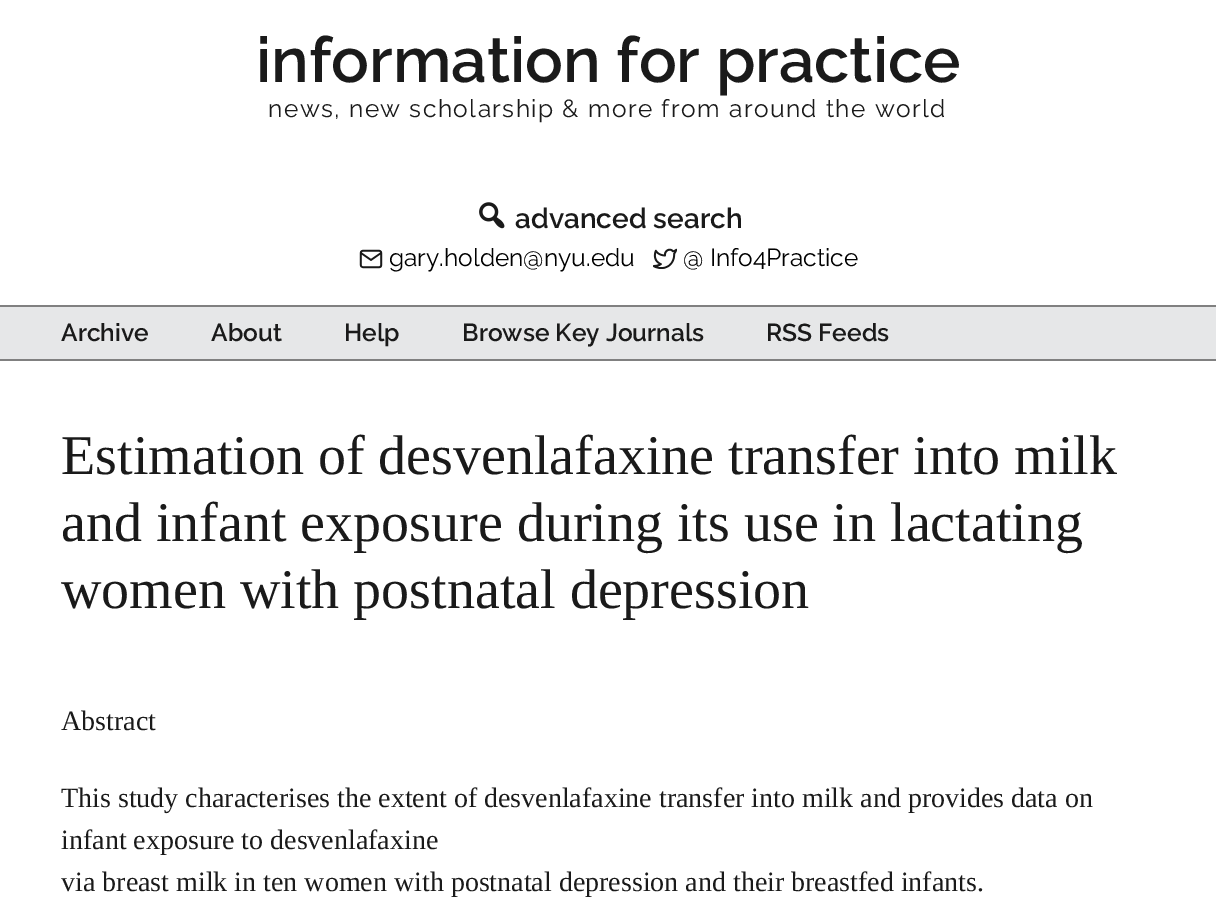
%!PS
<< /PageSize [1216 924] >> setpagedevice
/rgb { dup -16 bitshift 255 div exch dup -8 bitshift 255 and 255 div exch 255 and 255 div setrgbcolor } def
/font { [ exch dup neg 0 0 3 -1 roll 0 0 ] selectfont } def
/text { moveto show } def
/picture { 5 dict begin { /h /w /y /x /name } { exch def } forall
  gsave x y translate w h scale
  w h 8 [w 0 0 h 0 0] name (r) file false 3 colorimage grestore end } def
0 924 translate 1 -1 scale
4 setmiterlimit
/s1 { /Raleway-SemiBold 63 font 16#1A1A1A rgb } def
/s2 { /Raleway-SemiBold 28 font 16#1A1A1A rgb } def
/s3 { /Raleway-Regular 24.5 font 16#000000 rgb } def
/s4 { /Raleway-SemiBold 24.5 font 16#1A1A1A rgb } def
/s5 { /LiberationSerif-Regular 56 font 16#1A1A1A rgb } def
/s6 { /LiberationSerif-Regular 28 font 16#1A1A1A rgb } def
16#FFFFFF rgb
0 0 1216 924 rectfill
s1
(information for practice) 256 82 text
/Raleway-Regular 24.5 font
268 117 moveto 1.45 0 (news, new scholarship & more from around the world) ashow
(pic1.raw) 479 202 26 27 picture
s2
(advanced search) 515 228 text
(pic2.raw) 359 249 24 20 picture
s3
(gary.holden@nyu.edu) 389 266 text
(pic3.raw) 653 248 24 21 picture
(@ Info4Practice) 683 266 text
16#E6E7E8 rgb
0 307 1216 52 rectfill
16#808080 rgb
0 305 1216 2 rectfill
0 359 1216 2 rectfill
s4
(Archive) 61 341 text
(About) 211 341 text
(Help) 344 341 text
(Browse Key Journals) 462 341 text
(RSS Feeds) 766 341 text
s5
(Estimation of desvenlafaxine transfer into milk) 61 474 text
(and infant exposure during its use in lactating) 61 541 text
(women with postnatal depression) 61 608 text
s6
(Abstract) 61 730 text
(This study characterises the extent of desvenlafaxine transfer into milk and provides data on) 61 807 text
(infant exposure to desvenlafaxine) 61 849 text
(via breast milk in ten women with postnatal depression and their breastfed infants.) 61 891 text
showpage
